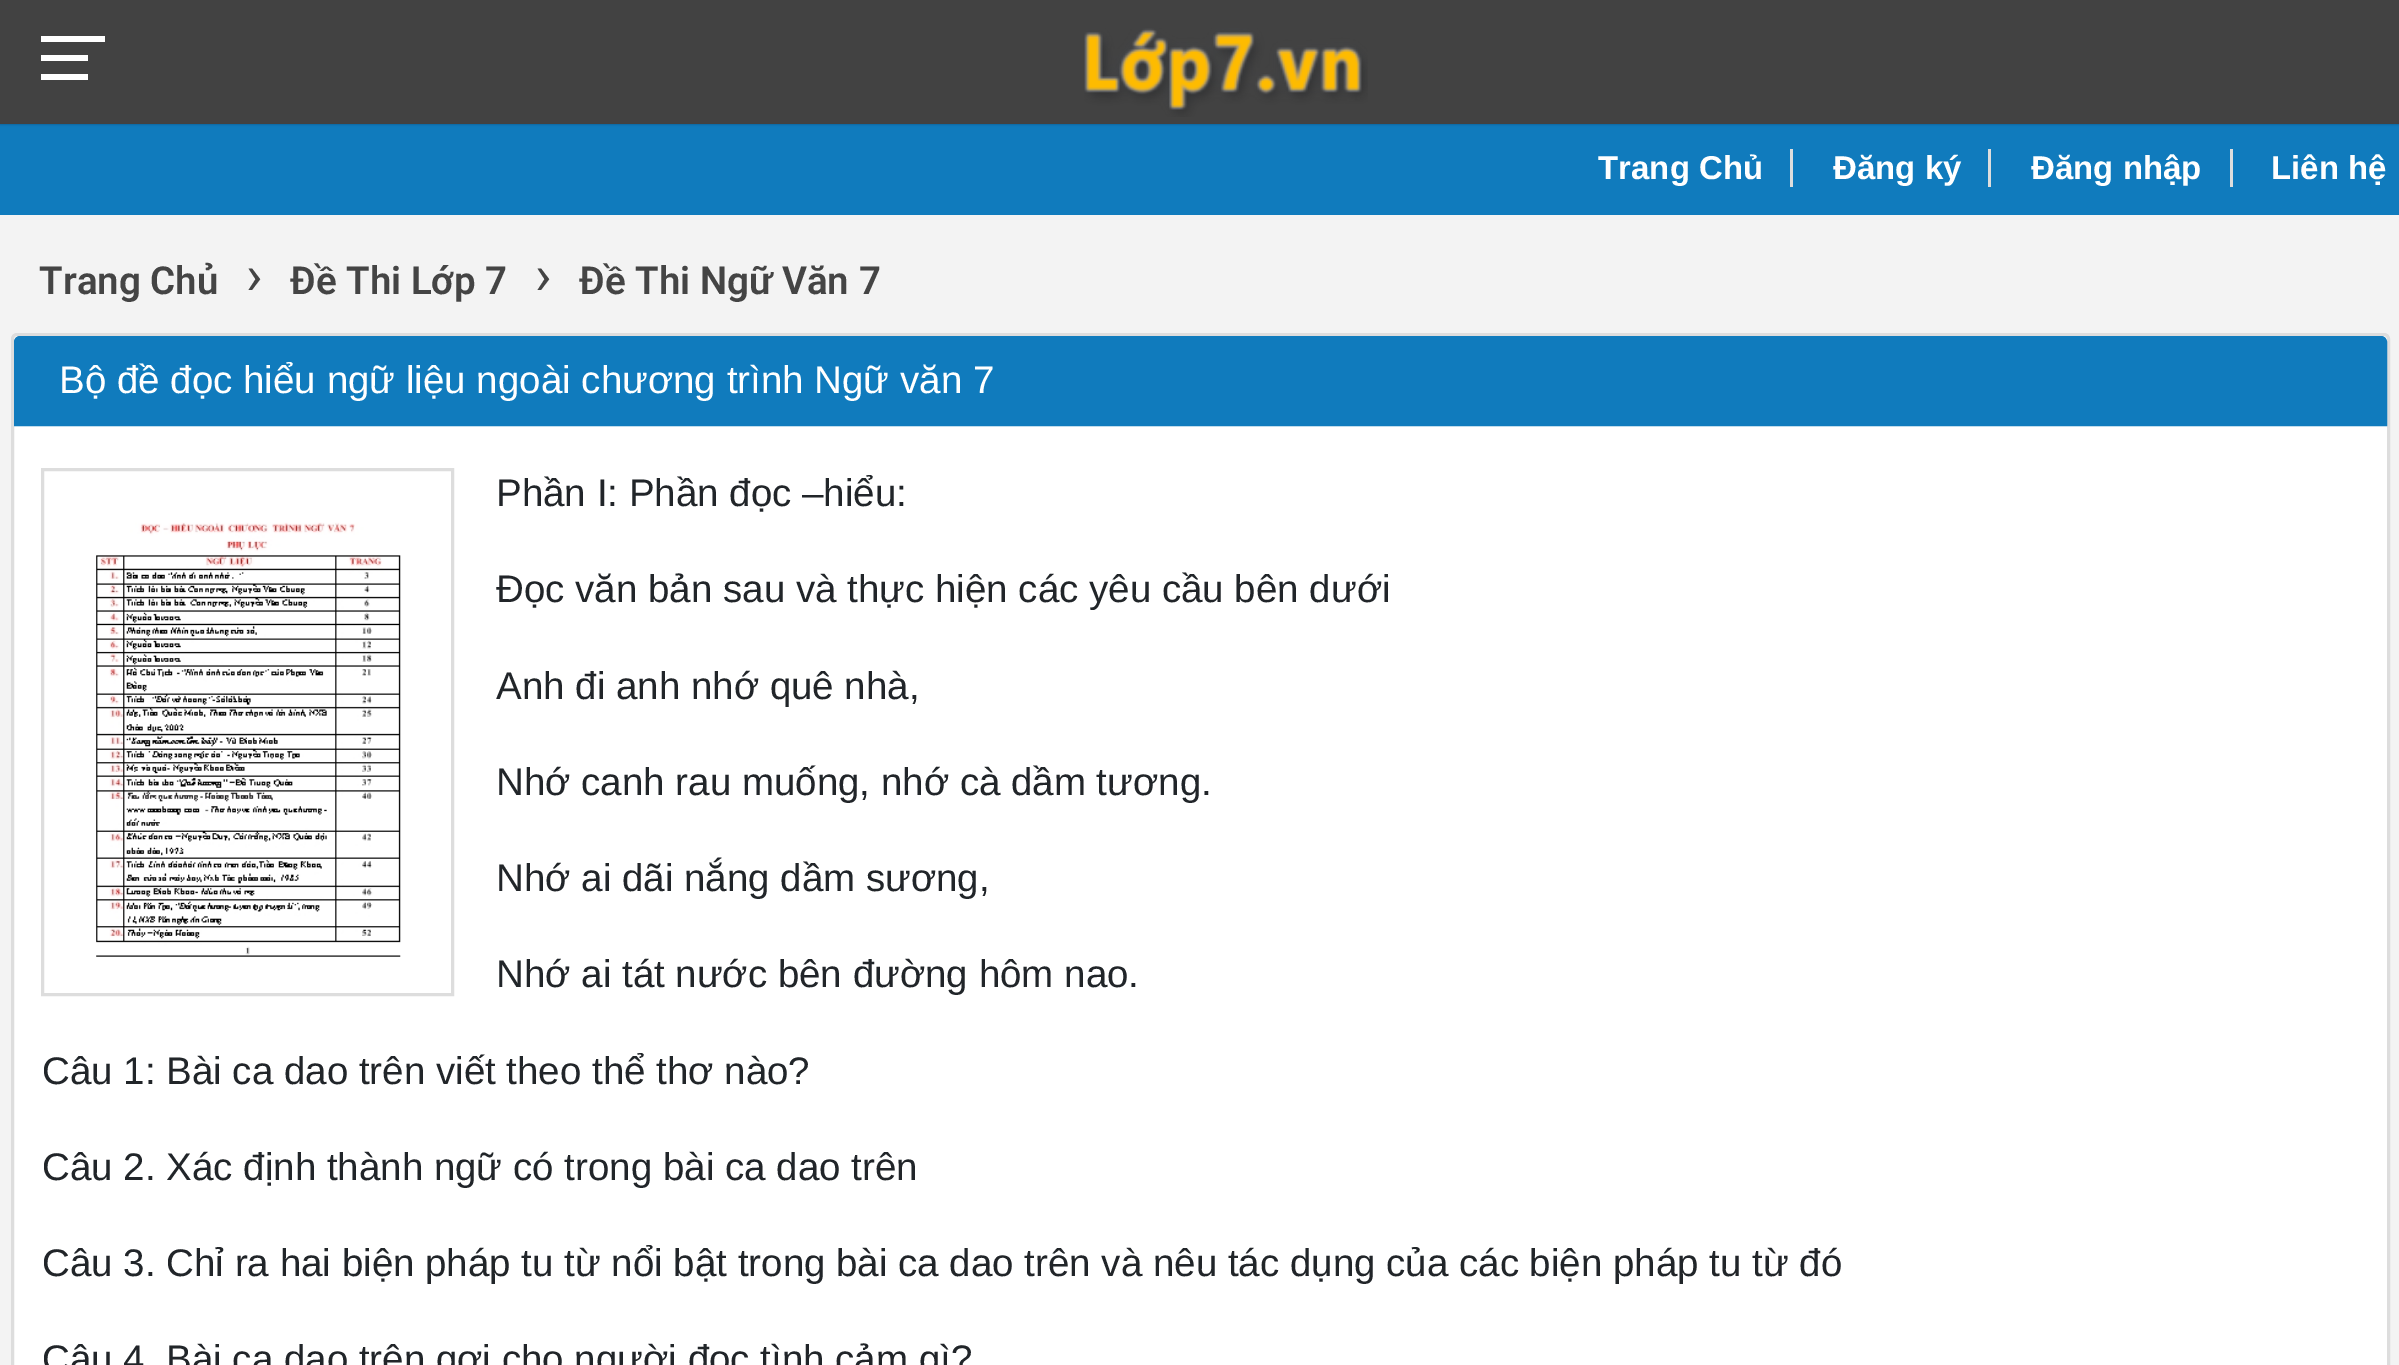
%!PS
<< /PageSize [2399 1365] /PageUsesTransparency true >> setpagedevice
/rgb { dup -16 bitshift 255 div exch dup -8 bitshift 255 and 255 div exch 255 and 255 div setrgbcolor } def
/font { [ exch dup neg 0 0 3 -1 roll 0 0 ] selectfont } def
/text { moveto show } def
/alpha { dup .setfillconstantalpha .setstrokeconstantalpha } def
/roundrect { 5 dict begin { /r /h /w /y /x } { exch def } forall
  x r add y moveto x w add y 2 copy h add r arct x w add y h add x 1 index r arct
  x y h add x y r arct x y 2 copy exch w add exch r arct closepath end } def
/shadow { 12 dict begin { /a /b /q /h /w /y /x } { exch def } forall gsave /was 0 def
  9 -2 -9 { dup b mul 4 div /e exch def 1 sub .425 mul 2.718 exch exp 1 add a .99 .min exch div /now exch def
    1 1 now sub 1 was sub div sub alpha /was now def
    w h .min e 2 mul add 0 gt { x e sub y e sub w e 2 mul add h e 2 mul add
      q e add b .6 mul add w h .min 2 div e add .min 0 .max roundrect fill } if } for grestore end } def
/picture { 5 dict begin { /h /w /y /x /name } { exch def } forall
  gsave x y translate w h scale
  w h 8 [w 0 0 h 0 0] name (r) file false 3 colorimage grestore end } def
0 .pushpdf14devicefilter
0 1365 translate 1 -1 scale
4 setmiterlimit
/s1 { /LiberationSans-Bold 33 font 16#FFFFFF rgb } def
/s2 { /Roboto-SemiBold 38.5 font 16#444444 rgb } def
/s3 { /Roboto-Regular 55 font 16#444444 rgb } def
/s4 { /LiberationSans-Regular 38.5 font 16#FFFFFF rgb } def
/s5 { /LiberationSans-Regular 38.5 font 16#212529 rgb } def
16#F3F3F3 rgb
0 0 2399 1365 rectfill
16#107BBD rgb
0 124 2399 91 rectfill
16#000000 rgb
0 0 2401 124 0 1.5 0.3 shadow
16#424242 rgb
0 0 2399 124 rectfill
16#FFFFFF rgb
41 55 47 6 rectfill
41 36 64 6 rectfill
41 74 47 6 rectfill
(pic1.raw) 1084 28 284 89 picture
s1
(Trang Chủ) 1598 179 text
16#DDDDDD rgb
1790 149 3 38 rectfill
s1
(Đăng ký) 1833 179 text
16#DDDDDD rgb
1988 149 3 38 rectfill
s1
(Đăng nhập) 2031 179 text
16#DDDDDD rgb
2230 149 3 38 rectfill
s1
(Liên hệ) 2271 179 text
s2
(Trang Chủ) 39 294 text
s3
(›) 246 294 text
s2
(Đề Thi Lớp 7) 290 294 text
s3
(›) 535 294 text
s2
(Đề Thi Ngữ Văn 7) 579 294 text
16#FFFFFF rgb
12.5 334.5 2376 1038 4.5 roundrect gsave fill grestore
16#DDDDDD rgb
3 setlinewidth
stroke
16#107BBD rgb
20 337.5 moveto 2381 337.5 lineto 2383.5 337.5 2385.5 339.5 2385.5 342 curveto 2385.5 424.5 lineto 15.5 424.5 lineto 15.5 342 lineto 15.5 339.5 17.5 337.5 20 337.5 curveto closepath gsave fill grestore
stroke
s4
(Bộ đề đọc hiểu ngữ liệu ngoài chương trình Ngữ văn 7) 59 393 text
16#DDDDDD rgb
42.5 469.5 410 525 rectstroke
(pic2.raw) 96 522 305 435 picture
s5
(Phần I: Phần đọc –hiểu:) 496 506 text
(Đọc văn bản sau và thực hiện các yêu cầu bên dưới) 496 602 text
(Anh đi anh nhớ quê nhà,) 496 699 text
(Nhớ canh rau muống, nhớ cà dầm tương.) 496 795 text
(Nhớ ai dãi nắng dầm sương,) 496 891 text
(Nhớ ai tát nước bên đường hôm nao.) 496 987 text
(Câu 1: Bài ca dao trên viết theo thể thơ nào?) 42 1084 text
(Câu 2. Xác định thành ngữ có trong bài ca dao trên) 42 1180 text
(Câu 3. Chỉ ra hai biện pháp tu từ nổi bật trong bài ca dao trên và nêu tác dụng của các biện pháp tu từ đó) 42 1276 text
(Câu 4. Bài ca dao trên gợi cho người đọc tình cảm gì?) 42 1372 text
.poppdf14devicefilter showpage
